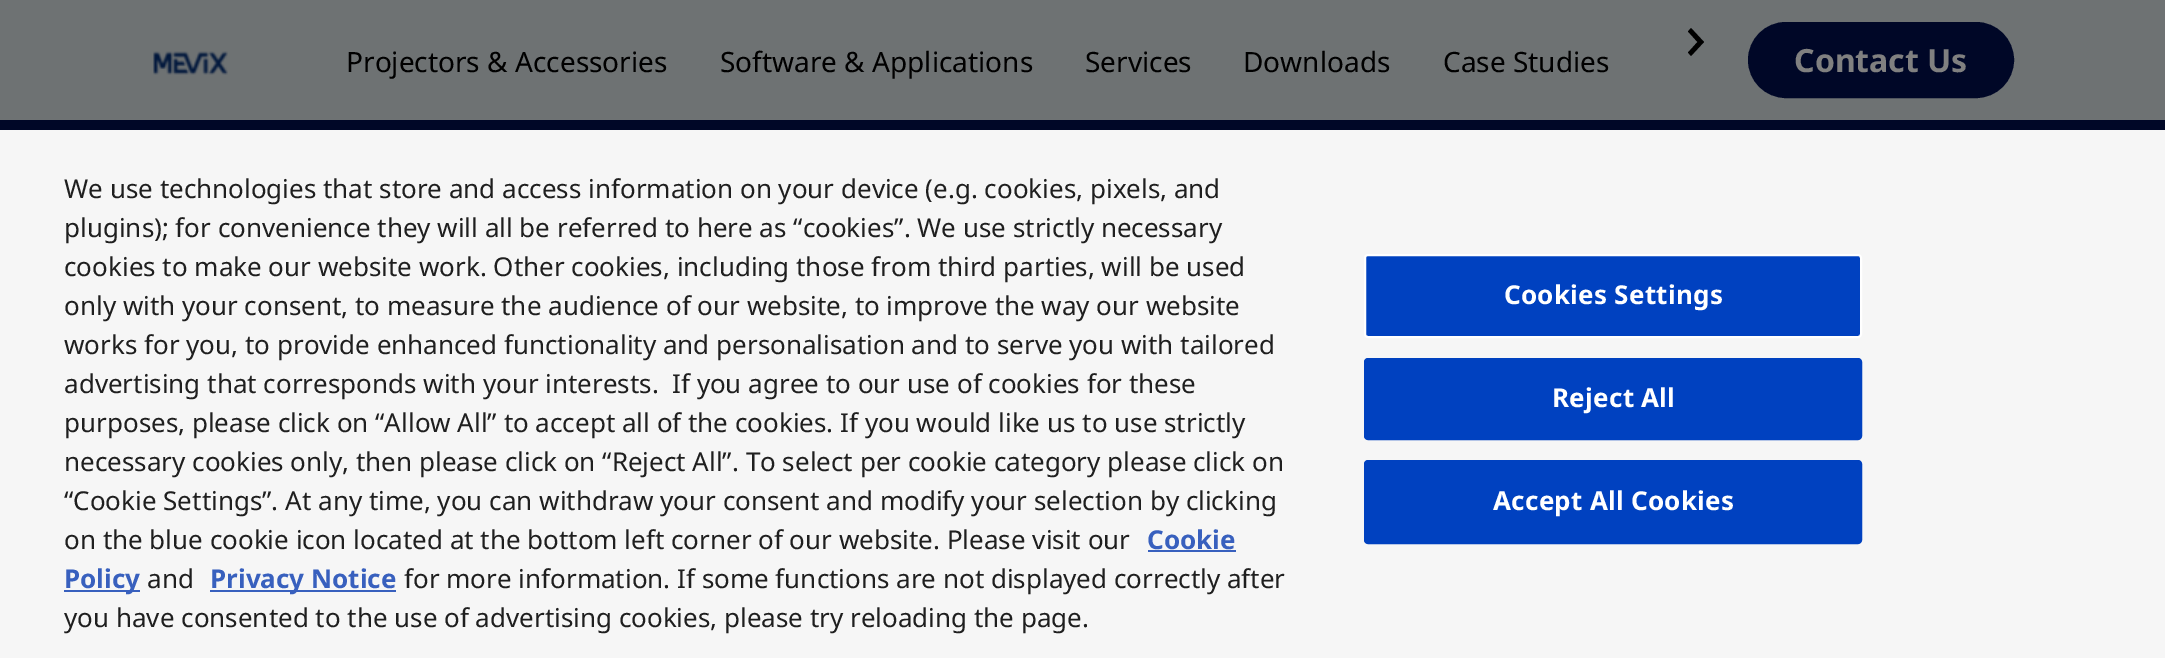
%!PS
<< /PageSize [2165 658] >> setpagedevice
/rgb { dup -16 bitshift 255 div exch dup -8 bitshift 255 and 255 div exch 255 and 255 div setrgbcolor } def
/font { [ exch dup neg 0 0 3 -1 roll 0 0 ] selectfont } def
/text { moveto show } def
/roundrect { 5 dict begin { /r /h /w /y /x } { exch def } forall
  x r add y moveto x w add y 2 copy h add r arct x w add y h add x 1 index r arct
  x y h add x y r arct x y 2 copy exch w add exch r arct closepath end } def
/picture { 5 dict begin { /h /w /y /x /name } { exch def } forall
  gsave x y translate w h scale
  w h 8 [w 0 0 h 0 0] name (r) file false 3 colorimage grestore end } def
0 658 translate 1 -1 scale
4 setmiterlimit
/s1 { /NotoSans-Regular 28 font 16#000000 rgb } def
/s2 { /NotoSans-Bold 32 font 16#808080 rgb } def
/s3 { /NotoSans-Regular 26 font 16#1F1F1F rgb } def
/s4 { /NotoSans-Bold 26 font 16#3860BE rgb } def
16#000727 rgb
0 0 2165 658 rectfill
16#6E7273 rgb
0 0 2165 120 rectfill
16#000000 rgb
1704 42 moveto 1691 56 lineto 1688 52.5 lineto 1697.5 42 lineto 1688 31.5 lineto 1691 28 lineto closepath fill
(pic1.raw) 153 51 75 24 picture
s1
(Projectors & Accessories) 346 72 text
(Software & Applications) 720 72 text
(Services) 1085 72 text
(Downloads) 1243 72 text
(Case Studies) 1443 72 text
16#000727 rgb
1749 23 264 74 37 roundrect gsave fill grestore
2 setlinewidth
stroke
s2
(Contact Us) 1794 72 text
16#F6F6F6 rgb
0 130 2165 528 rectfill
s3
(We use technologies that store and access information on your device \(e.g. cookies, pixels, and) 64 198 text
(plugins\); for convenience they will all be referred to here as “cookies”. We use strictly necessary) 64 237 text
(cookies to make our website work. Other cookies, including those from third parties, will be used) 64 276 text
(only with your consent, to measure the audience of our website, to improve the way our website) 64 315 text
(works for you, to provide enhanced functionality and personalisation and to serve you with tailored) 64 354 text
(advertising that corresponds with your interests.) 64 393 text
(If you agree to our use of cookies for these) 672 393 text
(purposes, please click on “Allow All” to accept all of the cookies. If you would like us to use strictly) 64 432 text
(necessary cookies only, then please click on “Reject All”. To select per cookie category please click on) 64 471 text
(“Cookie Settings”. At any time, you can withdraw your consent and modify your selection by clicking) 64 510 text
(on the blue cookie icon located at the bottom left corner of our website. Please visit our) 64 549 text
s4
(Cookie) 1147 549 text
1148 550 88 2 rectfill
64 590 76 2 rectfill
(Policy) 64 588 text
s3
(and) 147 588 text
16#3860BE rgb
210 590 186 2 rectfill
s4
(Privacy Notice) 210 588 text
s3
(for more information. If some functions are not displayed correctly after) 404 588 text
(you have consented to the use of advertising cookies, please try reloading the page.) 64 627 text
16#0041C0 rgb
1365 255 496 82 3 roundrect gsave fill grestore
16#FFFFFF rgb
stroke
/NotoSans-Bold 26 font
1504 304 moveto 0.25 0 (Cookies Settings) ashow
16#0041C0 rgb
1365 359 496 80 3 roundrect gsave fill grestore
stroke
16#FFFFFF rgb
1552 407 moveto 0.25 0 (Reject All) ashow
16#0041C0 rgb
1365 461 496 82 3 roundrect gsave fill grestore
stroke
16#FFFFFF rgb
1493 510 moveto 0.25 0 (Accept All Cookies) ashow
showpage
